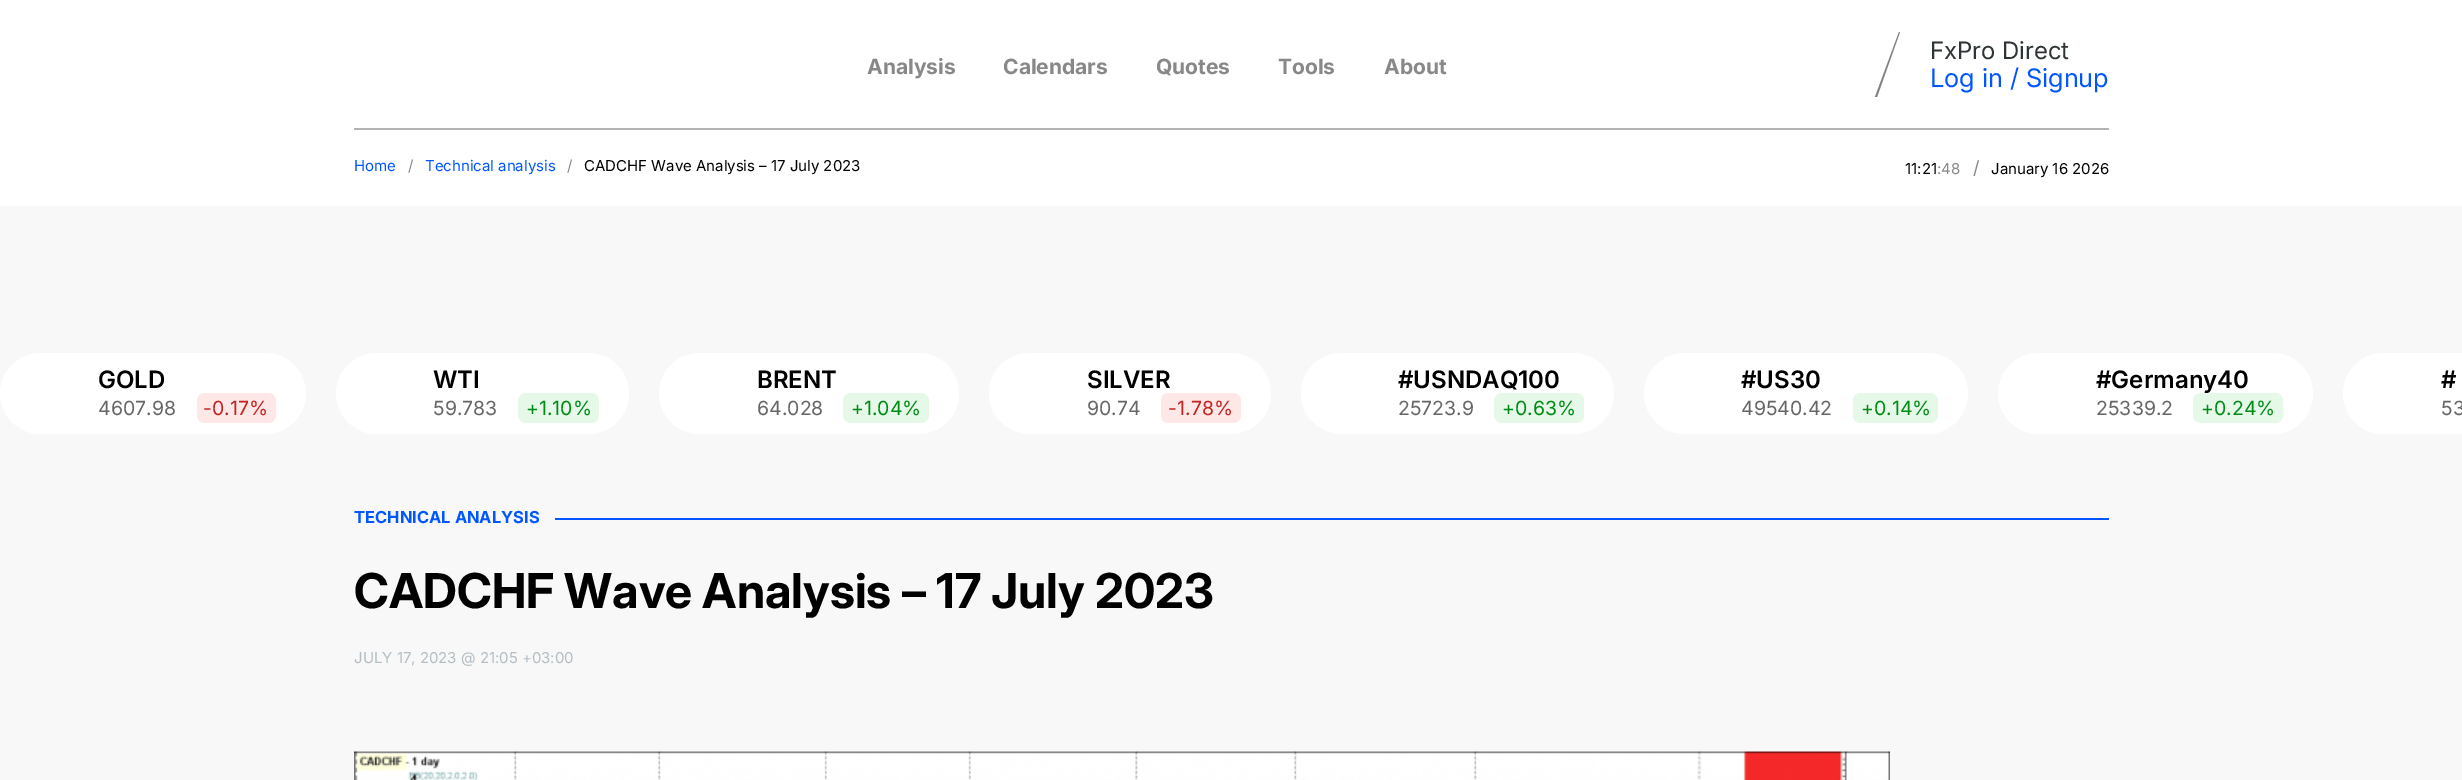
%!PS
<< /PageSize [2462 780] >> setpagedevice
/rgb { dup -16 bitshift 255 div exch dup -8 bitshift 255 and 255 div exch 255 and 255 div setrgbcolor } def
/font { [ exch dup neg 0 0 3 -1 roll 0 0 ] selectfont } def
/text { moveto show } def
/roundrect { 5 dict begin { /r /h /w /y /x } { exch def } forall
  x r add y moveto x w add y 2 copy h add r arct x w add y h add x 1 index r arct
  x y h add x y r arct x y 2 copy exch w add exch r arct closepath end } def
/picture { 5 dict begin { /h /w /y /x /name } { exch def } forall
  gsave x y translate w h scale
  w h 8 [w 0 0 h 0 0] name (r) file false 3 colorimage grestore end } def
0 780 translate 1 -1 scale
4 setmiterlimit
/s1 { /Inter-Bold 21 font 16#888888 rgb } def
/s2 { /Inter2-Regular 24 font 16#2D3436 rgb } def
/s3 { /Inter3-Regular 25.5 font 16#0056FF rgb } def
/s4 { /Inter-Regular 15 font 16#0056FF rgb } def
/s5 { /Inter-Regular 15 font 16#888888 rgb } def
/s6 { /Inter-Regular 15 font 16#000000 rgb } def
/s7 { /Inter-Regular 18 font 16#888888 rgb } def
/s8 { /Inter-SemiBold 24 font 16#000000 rgb } def
/s9 { /Inter-Regular 19.5 font 16#666666 rgb } def
/s10 { /Inter-Regular 19.5 font 16#C32420 rgb } def
/s11 { /Inter-Regular 19.5 font 16#008B16 rgb } def
/s12 { /Inter-Bold 16.5 font 16#0056FF rgb } def
/s13 { /Inter2-Bold 48 font 16#000000 rgb } def
/s14 { /Inter-Regular 15 font 16#B2BEC3 rgb } def
16#F9F8F8 rgb
0 0 2462 780 rectfill
16#FFFFFF rgb
0 0 2462 206 rectfill
16#B3B3B3 rgb
354 128 1755 2 rectfill
s1
(Analysis) 867 74 text
(Calendars) 1003 74 text
(Quotes) 1156 74 text
(Tools) 1278 74 text
(About) 1384 74 text
16#808080 rgb
1900 32 moveto 1877 97 lineto 1875 97 lineto 1899 32 lineto closepath fill
s2
(FxPro Direct) 1930 59 text
s3
(Log in / Signup) 1930 87 text
s4
(Home) 354 171 text
s5
(/) 408 171 text
s4
(Technical analysis) 425 171 text
s5
(/) 567 171 text
s6
(CADCHF Wave Analysis – 17 July 2023) 584 171 text
(11:21) 1905 174 text
s5
(:48) 1937 174 text
s7
(/) 1973 174 text
s6
(January 16 2026) 1991 174 text
16#FFFFFF rgb
0 353 306 81 40.5 roundrect fill
s8
(GOLD) 98 388 text
s9
(4607.98) 98 415 text
16#FEE7E7 rgb
197 393 79 30 8 roundrect fill
s10
(-0.17%) 203 415 text
16#FFFFFF rgb
336 353 293 81 40.5 roundrect fill
s8
(WTI) 433 388 text
s9
(59.783) 433 415 text
16#E6F9E9 rgb
518 393 81 30 8 roundrect fill
s11
(+1.10%) 526 415 text
16#FFFFFF rgb
659 353 300 81 40.5 roundrect fill
s8
(BRENT) 757 388 text
s9
(64.028) 757 415 text
16#E6F9E9 rgb
843 393 86 30 8 roundrect fill
s11
(+1.04%) 851 415 text
16#FFFFFF rgb
989 353 282 81 40.5 roundrect fill
s8
(SILVER) 1087 388 text
s9
(90.74) 1087 415 text
16#FEE7E7 rgb
1161 393 80 30 8 roundrect fill
s10
(-1.78%) 1168 415 text
16#FFFFFF rgb
1301 353 313 81 40.5 roundrect fill
s8
(#USNDAQ100) 1398 388 text
s9
(25723.9) 1398 415 text
16#E6F9E9 rgb
1494 393 90 30 8 roundrect fill
s11
(+0.63%) 1502 415 text
16#FFFFFF rgb
1644 353 324 81 40.5 roundrect fill
s8
(#US30) 1741 388 text
s9
(49540.42) 1741 415 text
16#E6F9E9 rgb
1853 393 85 30 8 roundrect fill
s11
(+0.14%) 1861 415 text
16#FFFFFF rgb
1998 353 315 81 40.5 roundrect fill
s8
(#Germany40) 2096 388 text
s9
(25339.2) 2096 415 text
16#E6F9E9 rgb
2193 393 90 30 8 roundrect fill
s11
(+0.24%) 2201 415 text
16#FFFFFF rgb
2383.5 353 moveto 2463 353 lineto 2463 434 lineto 2383.5 434 lineto 2361 434 2343 416 2343 393.5 curveto 2343 371 2361 353 2383.5 353 curveto closepath fill
s8
(#) 2441 388 text
s9
(53) 2441 415 text
s12
(TECHNICAL ANALYSIS) 354 523 text
555 518 1554 2 rectfill
s13
(CADCHF Wave Analysis – 17 July 2023) 354 608 text
s14
(JULY 17, 2023 @ 21:05 +03:00) 354 663 text
(pic1.raw) 354 751 1536 29 picture
showpage
